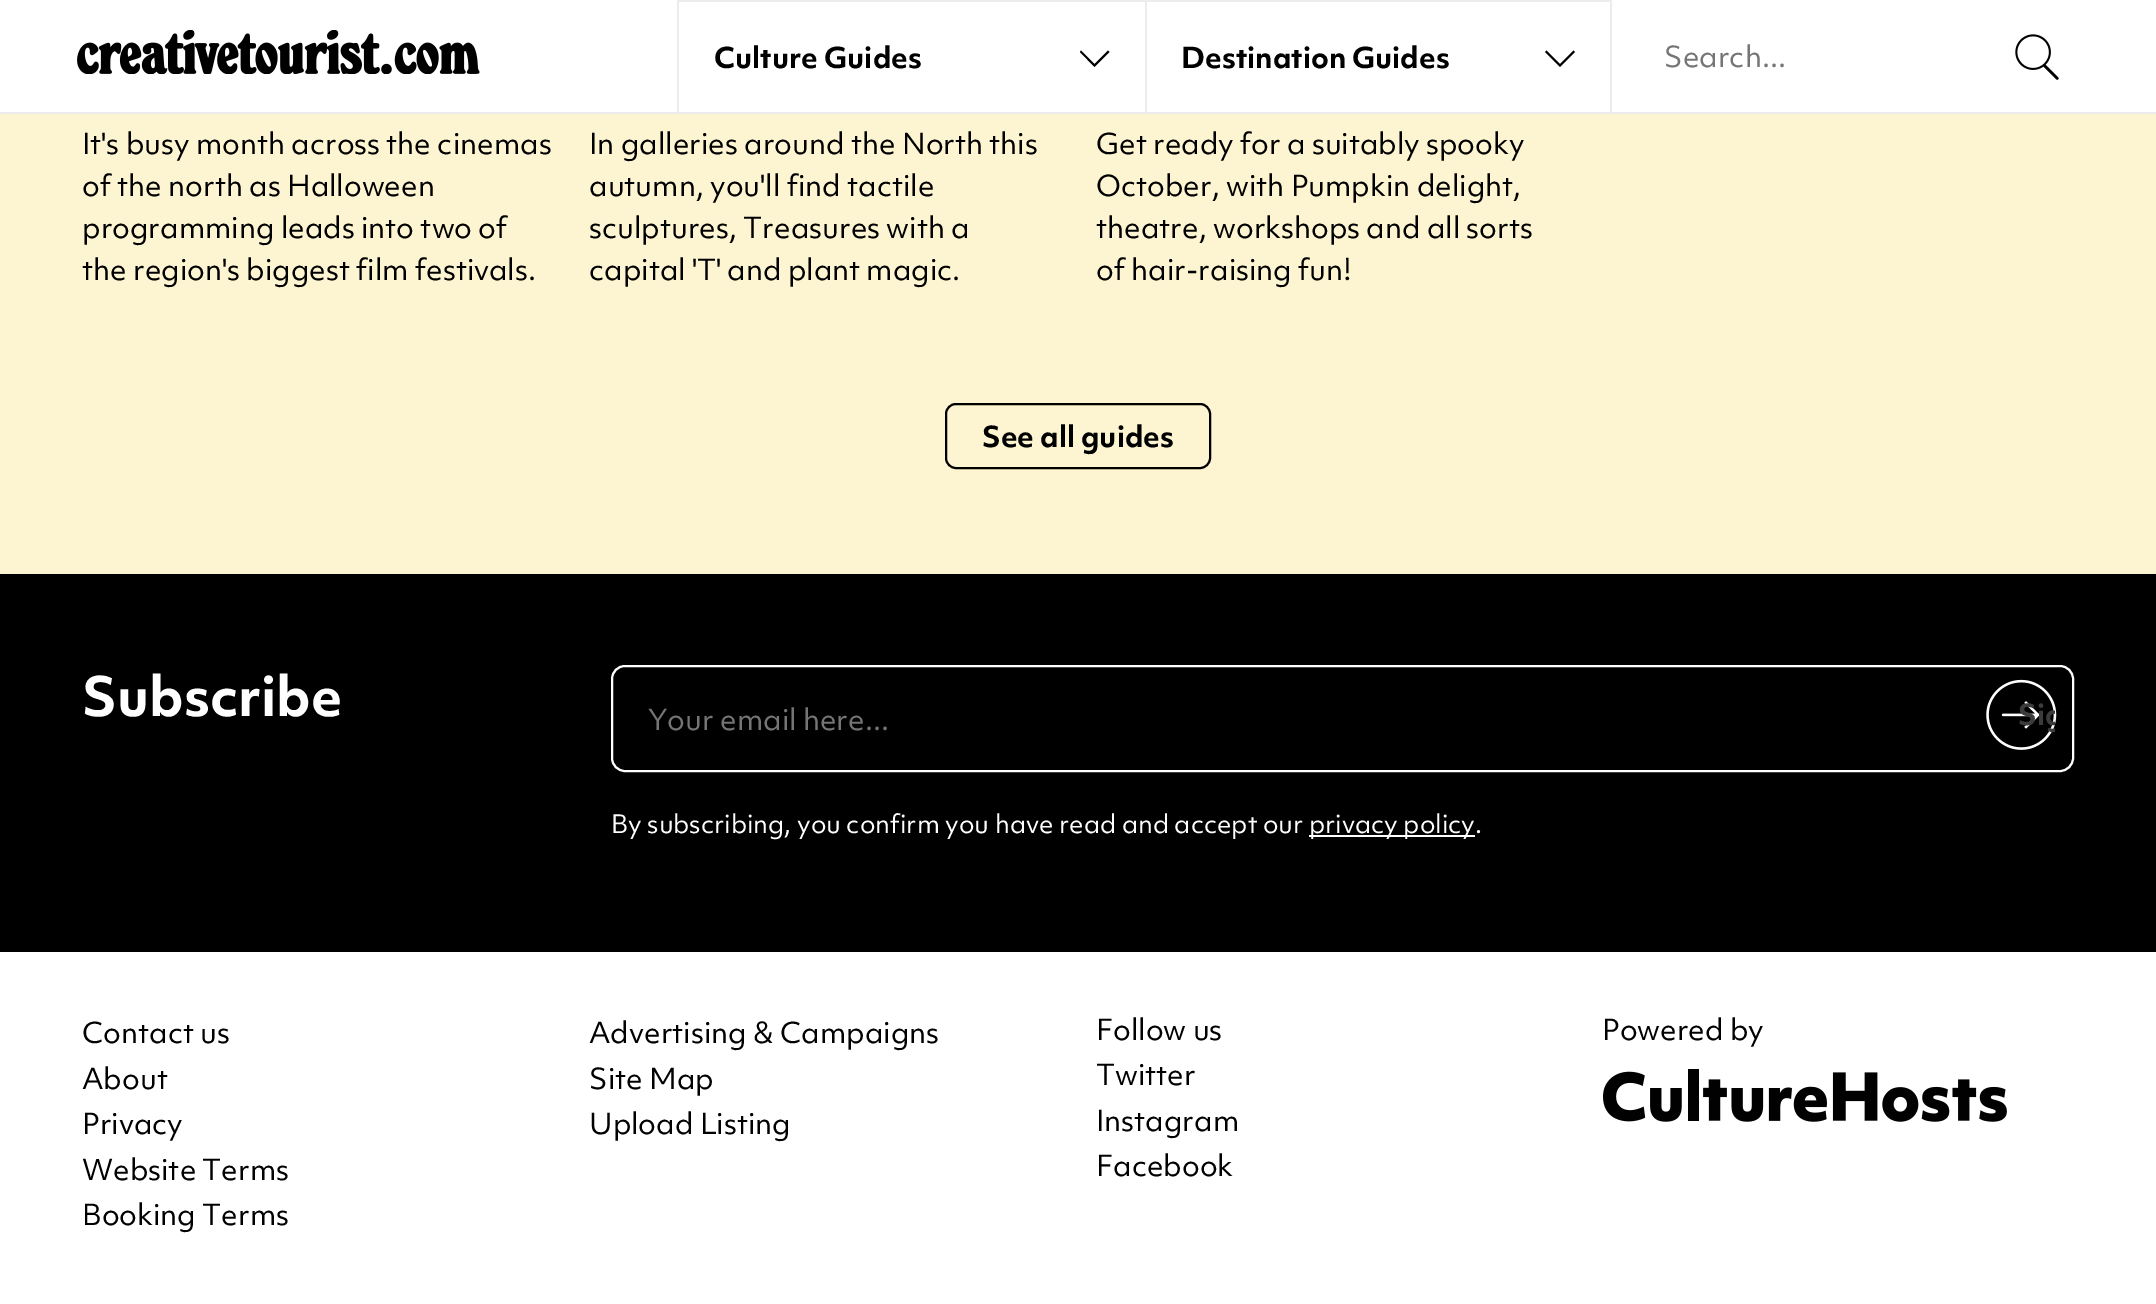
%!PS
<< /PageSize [2156 1304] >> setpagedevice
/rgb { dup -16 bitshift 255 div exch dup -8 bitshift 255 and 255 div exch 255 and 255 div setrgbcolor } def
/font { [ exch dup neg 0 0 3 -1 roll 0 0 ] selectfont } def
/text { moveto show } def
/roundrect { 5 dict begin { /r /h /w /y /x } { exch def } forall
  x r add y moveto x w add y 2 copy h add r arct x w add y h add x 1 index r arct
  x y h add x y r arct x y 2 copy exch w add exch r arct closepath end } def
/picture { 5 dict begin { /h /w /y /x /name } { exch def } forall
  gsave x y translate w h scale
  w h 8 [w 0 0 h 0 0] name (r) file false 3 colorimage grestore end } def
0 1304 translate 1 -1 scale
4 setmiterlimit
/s1 { /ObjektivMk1-Bold 28 font 16#000000 rgb } def
/s2 { /ObjektivMk1-Regular 28 font 16#757575 rgb } def
/s3 { /ObjektivMk1-Regular 28 font 16#000000 rgb } def
/s4 { /ObjektivMk1-Bold 52.5 font 16#FFFFFF rgb } def
/s5 { /ObjektivMk1-Bold 28 font 16#3C3C3C rgb } def
/s6 { /ObjektivMk1-Regular 24.5 font 16#FFFFFF rgb } def
16#FFFFFF rgb
0 0 2156 1304 rectfill
(pic1.raw) 77 30 403 44 picture
16#ECECEC rgb
677 0 935 2 rectfill
677 2 2 112 rectfill
s1
(Culture Guides) 714 68 text
1109.5 52 moveto 1094.5 67 lineto 1080 52 lineto 1081 50.5 lineto 1094.5 64 lineto 1108 50.5 lineto closepath fill
16#ECECEC rgb
1610 2 2 112 rectfill
1145 2 2 112 rectfill
s1
(Destination Guides) 1181 68 text
1575 52 moveto 1560 67 lineto 1545 52 lineto 1546.5 50.5 lineto 1560 64 lineto 1573.5 50.5 lineto closepath fill
s2
(Search...) 1664 67 text
(pic2.raw) 2015 34 44 46 picture
16#ECECEC rgb
0 112 2156 2 rectfill
16#FDF5D1 rgb
0 114 2156 460 rectfill
s3
(It's busy month across the cinemas) 82 154 text
(of the north as Halloween) 82 196 text
(programming leads into two of) 82 238 text
(the region's biggest film festivals.) 82 280 text
(In galleries around the North this) 589 154 text
(autumn, you'll find tactile) 589 196 text
(sculptures, Treasures with a) 589 238 text
(capital 'T' and plant magic.) 589 280 text
(Get ready for a suitably spooky) 1096 154 text
(October, with Pumpkin delight,) 1096 196 text
(theatre, workshops and all sorts) 1096 238 text
(of hair-raising fun!) 1096 280 text
2 setlinewidth
946 404 264 64 10 roundrect stroke
s1
(See all guides) 982 447 text
0 574 2156 378 rectfill
s4
(Subscribe) 82 716 text
612 666 1461 105 13 roundrect stroke
s2
(Your email here...) 648 730 text
(pic3.raw) 1986 679 71 71 picture
gsave
1985 679 70 70 5 roundrect clip newpath
s5
(Sig) 2018 725 text
grestore
s6
(By subscribing, you confirm you have read and accept our) 611 833 text
1309 835 166 2 rectfill
(privacy policy.) 1309 833 text
s3
(Contact us) 82 1043 text
(About) 82 1089 text
(Privacy) 82 1134 text
(Website Terms) 82 1180 text
(Booking Terms) 82 1225 text
(Advertising & Campaigns) 589 1043 text
(Site Map) 589 1089 text
(Upload Listing) 589 1134 text
(Follow us) 1096 1040 text
(Twitter) 1096 1085 text
(Instagram) 1096 1131 text
(Facebook) 1096 1176 text
(Powered by) 1602 1040 text
(pic4.raw) 1603 1069 404 53 picture
showpage
